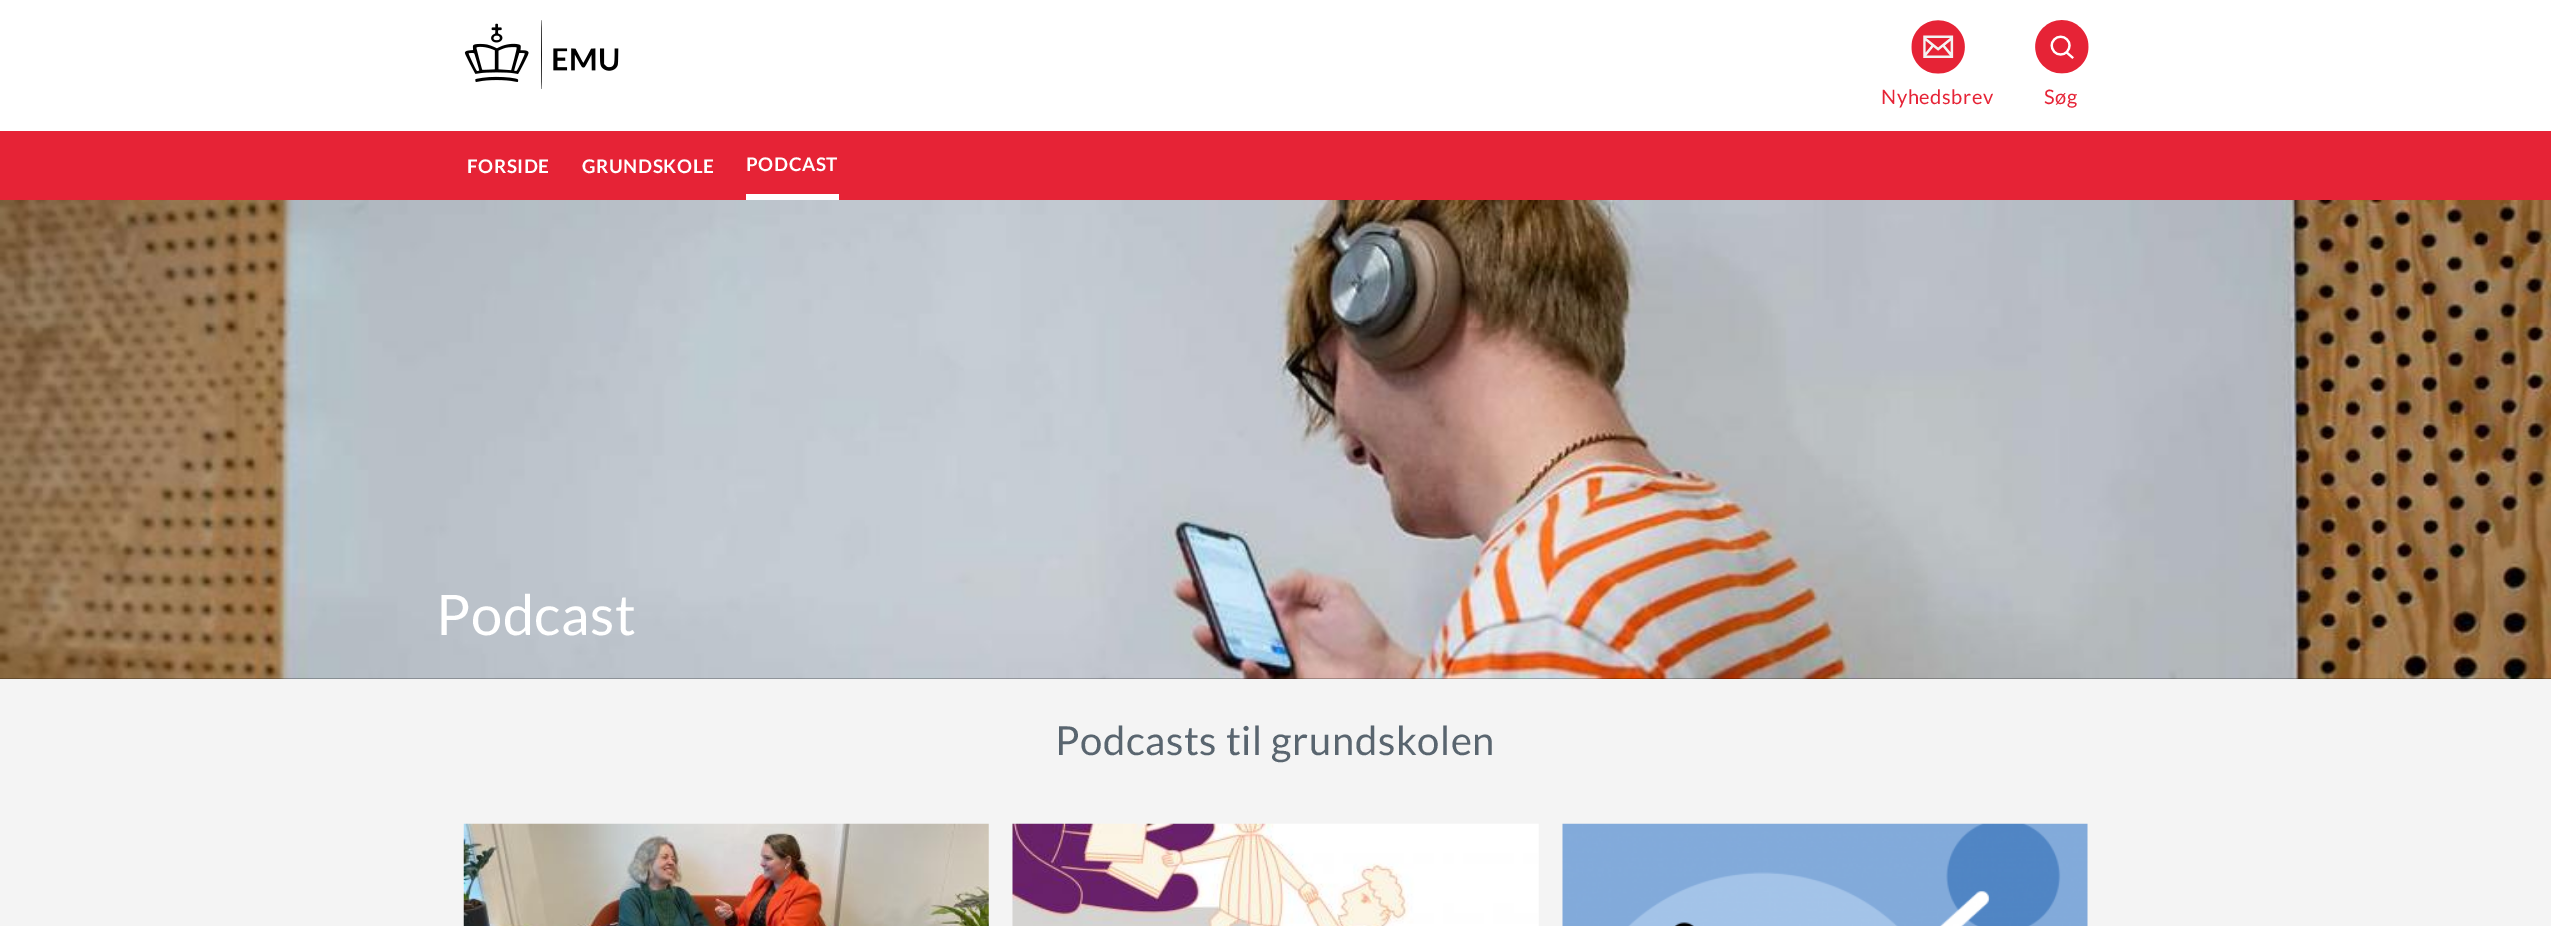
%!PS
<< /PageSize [2551 926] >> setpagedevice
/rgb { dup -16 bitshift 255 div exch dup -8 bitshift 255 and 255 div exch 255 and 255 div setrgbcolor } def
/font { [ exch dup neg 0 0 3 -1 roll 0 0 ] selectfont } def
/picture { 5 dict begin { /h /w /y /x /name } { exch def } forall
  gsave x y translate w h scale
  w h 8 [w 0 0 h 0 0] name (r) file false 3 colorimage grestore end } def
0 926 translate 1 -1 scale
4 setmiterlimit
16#FFFFFF rgb
0 0 2551 926 rectfill
(pic1.raw) 464 20 155 69 picture
(pic2.raw) 1911 20 54 54 picture
/Lato-Regular 20 font
16#E62336 rgb
1881 104 moveto 0.6 0 (Nyhedsbrev) ashow
(pic3.raw) 2035 20 54 54 picture
2044 104 moveto 0.6 0 (Søg) ashow
0 131 2551 69 rectfill
/Lato-Bold 18.75 font
16#FFFFFF rgb
467 173 moveto 0.6 0 (FORSIDE) ashow
582 173 moveto 0.6 0 (GRUNDSKOLE) ashow
746 194 93 6 rectfill
746 171 moveto 0.6 0 (PODCAST) ashow
(pic4.raw) 0 200 2551 479 picture
/Lato-Regular 56 font
436 635 moveto 0.6 0 (Podcast) ashow
16#F4F4F4 rgb
0 679 2551 247 rectfill
/Lato-Regular 40 font
16#59656F rgb
1055 755 moveto 0.6 0 (Podcasts til grundskolen) ashow
(pic5.raw) 463 823 526 103 picture
(pic6.raw) 1012 823 527 103 picture
(pic7.raw) 1562 823 526 103 picture
showpage
